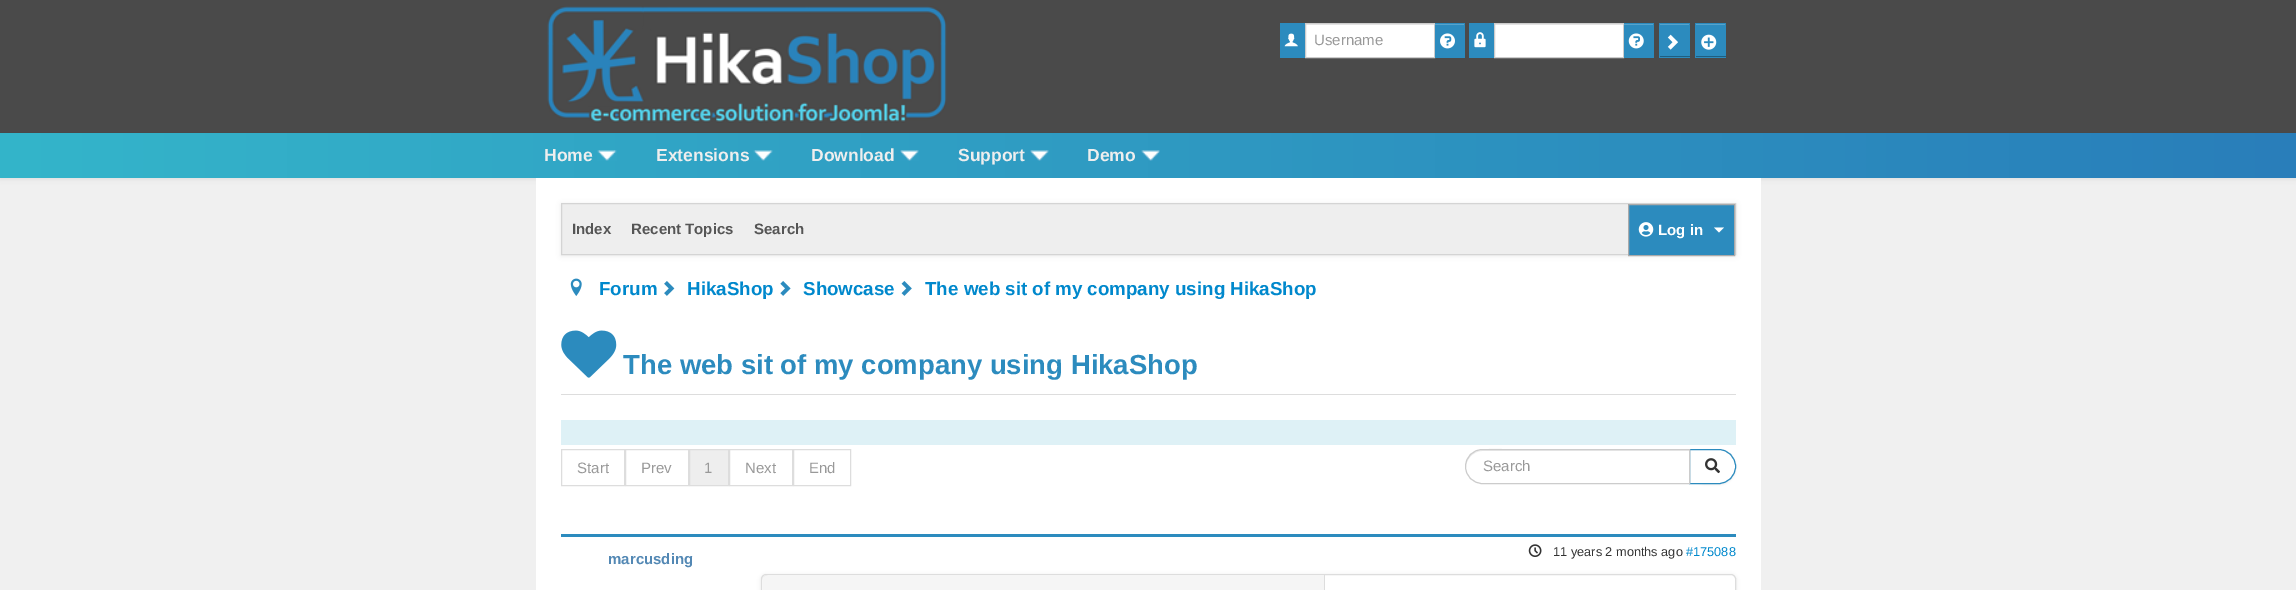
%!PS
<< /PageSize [2296 590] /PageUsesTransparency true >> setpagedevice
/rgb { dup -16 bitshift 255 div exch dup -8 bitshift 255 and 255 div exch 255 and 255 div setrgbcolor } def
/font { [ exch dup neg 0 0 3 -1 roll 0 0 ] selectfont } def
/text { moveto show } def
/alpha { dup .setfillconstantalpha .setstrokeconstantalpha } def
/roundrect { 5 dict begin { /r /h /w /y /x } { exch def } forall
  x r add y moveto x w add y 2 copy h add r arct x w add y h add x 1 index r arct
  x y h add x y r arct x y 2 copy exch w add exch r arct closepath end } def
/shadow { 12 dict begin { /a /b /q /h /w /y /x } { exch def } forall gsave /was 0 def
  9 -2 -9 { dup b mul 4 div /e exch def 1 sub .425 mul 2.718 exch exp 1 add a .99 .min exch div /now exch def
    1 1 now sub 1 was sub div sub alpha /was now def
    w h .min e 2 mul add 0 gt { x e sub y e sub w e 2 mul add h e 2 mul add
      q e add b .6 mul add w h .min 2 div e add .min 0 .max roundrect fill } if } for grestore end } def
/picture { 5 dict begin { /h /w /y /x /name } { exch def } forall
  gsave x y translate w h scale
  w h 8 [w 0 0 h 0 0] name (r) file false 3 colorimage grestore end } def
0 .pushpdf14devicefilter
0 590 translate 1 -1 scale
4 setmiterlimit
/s1 { /LiberationSans-Regular 15 font 16#999999 rgb } def
/s2 { /LiberationSans-Bold 17.5 font 16#EEEEEE rgb } def
/s3 { /LiberationSans-Bold 15 font 16#555555 rgb } def
/s4 { /LiberationSans-Bold 15 font 16#FFFFFF rgb } def
/s5 { /LiberationSans-Bold 18.75 font 16#0088CC rgb } def
/s6 { /LiberationSans-Bold 27.5 font 16#2C8BBE rgb } def
/s7 { /LiberationSans-Bold 15 font 16#5388B4 rgb } def
/s8 { /LiberationSans-Regular 12.75 font 16#333333 rgb } def
/s9 { /LiberationSans-Regular 12.75 font 16#0088CC rgb } def
16#F0F0F0 rgb
0 0 2296 590 rectfill
16#4A4A4A rgb
0 0 2296 133 rectfill
(pic1.raw) 547 6 106 113 picture
(pic2.raw) 588 6 359 117 picture
16#2C8BBE rgb
1280 23 25 35 rectfill
(pic3.raw) 1284 33 14 14 picture
16#FFFFFF rgb
1306 25 128 32 rectfill
16#ECECEC rgb
1306 24 128 1 rectfill
16#CCCCCC rgb
1305.5 23.5 129 34 rectstroke
s1
(Username) 1314 45 text
16#2C8BBE rgb
1435 23 30 35 rectfill
16#56A2CB rgb
1435 24 29 1 rectfill
(pic4.raw) 1440 33 15 16 picture
16#2C8BBE rgb
1469 23 25 35 rectfill
(pic5.raw) 1474 32 12 16 picture
16#FFFFFF rgb
1495 25 128 32 rectfill
16#ECECEC rgb
1495 24 128 1 rectfill
16#CCCCCC rgb
1494.5 23.5 129 34 rectstroke
16#2C8BBE rgb
1624 23 30 35 rectfill
16#56A2CB rgb
1624 24 29 1 rectfill
(pic6.raw) 1628 33 16 16 picture
16#2C8BBE rgb
1660 23 30 35 rectfill
16#56A2CB rgb
1660 24 29 1 rectfill
16#1E5E80 rgb
1659 56 31 1 rectfill
16#2C8BBE rgb
1659 23 1 35 rectfill
(pic7.raw) 1667 34 11 16 picture
1696 23 30 35 rectfill
16#56A2CB rgb
1696 24 29 1 rectfill
16#1E5E80 rgb
1695 56 31 1 rectfill
16#2C8BBE rgb
1695 23 1 35 rectfill
(pic8.raw) 1701 34 16 16 picture
16#000000 rgb
0 134 2296 45 0 2.5 0.07 shadow
gsave 0 133 moveto 2296 133 lineto 2296 178 lineto 0 178 lineto closepath clip newpath
<< /ShadingType 2 /ColorSpace /DeviceRGB /Coords [0 155 2296 155] /Extend [true true] /Function << /FunctionType 2 /Domain [0 1] /C0 [0.204 0.71 0.792] /C1 [0.161 0.494 0.729] /N 1 >> >> shfill grestore
(pic9.raw) 597 150 20 11 picture
s2
(Home) 544 161 text
(pic10.raw) 753 150 20 11 picture
(Extensions) 656 161 text
(pic11.raw) 900 150 19 11 picture
(Download) 811 161 text
(pic12.raw) 1030 150 19 11 picture
(Support) 958 161 text
(pic13.raw) 1141 150 19 11 picture
(Demo) 1087 161 text
16#FFFFFF rgb
536 178 1225 412 rectfill
16#000000 rgb
561 204 1175 52 0 2.5 0.07 shadow
16#EEEEEE rgb
562 204 1066 50 rectfill
16#D4D4D4 rgb
561.5 203.5 1174 51 rectstroke
s3
(Index) 572 234 text
(Recent Topics) 631 234 text
(Search) 754 234 text
16#2C8BBE rgb
1628.5 204.5 moveto 1734.5 204.5 lineto 1734.5 255.5 lineto 1628.5 255.5 lineto closepath gsave fill grestore
16#AAAAAA rgb
stroke
(pic14.raw) 1638 222 16 15 picture
s4
(Log in) 1658 235 text
1714 227.5 moveto 1724 227.5 lineto 1719 232.5 lineto closepath fill
(pic15.raw) 570 278 12 18 picture
s5
(Forum) 599 295 text
(pic16.raw) 664 281 11 15 picture
(HikaShop) 687 295 text
(pic17.raw) 780 281 11 15 picture
(Showcase) 803 295 text
(pic18.raw) 901 281 11 15 picture
(The web sit of my company using HikaShop) 925 295 text
16#DDDDDD rgb
561 394 1175 1 rectfill
(pic19.raw) 561 330 56 48 picture
s6
(The web sit of my company using HikaShop) 623 374 text
16#DEF1F6 rgb
561 420 1175 25 rectfill
16#DDDDDD rgb
561.5 449.5 63 36 rectstroke
s1
(Start) 577 473 text
16#DDDDDD rgb
625.5 449.5 63 36 rectstroke
s1
(Prev) 641 473 text
16#EEEEEE rgb
689.5 449.5 moveto 728.5 449.5 lineto 728.5 485.5 lineto 689.5 485.5 lineto closepath gsave fill grestore
16#DDDDDD rgb
stroke
s1
(1) 704 473 text
16#DDDDDD rgb
729.5 449.5 63 36 rectstroke
s1
(Next) 745 473 text
16#DDDDDD rgb
793.5 449.5 57 36 rectstroke
s1
(End) 809 473 text
16#000000 rgb
1689 450 47 35 17.5 1 0.05 shadow
16#FFFFFF rgb
1689.5 449.5 moveto 1718.5 449.5 lineto 1728 449.5 1735.5 457 1735.5 466.5 curveto 1735.5 476 1728 483.5 1718.5 483.5 curveto 1689.5 483.5 lineto closepath gsave fill grestore
16#2C8BBE rgb
stroke
16#FFFFFF rgb
1482.5 449 moveto 1690 449 lineto 1690 484 lineto 1482.5 484 lineto 1473 484 1465 476 1465 466.5 curveto 1465 457 1473 449 1482.5 449 curveto closepath fill
16#ECECEC rgb
1482 451 moveto 1689 451 lineto 1689 450 lineto 1517 450 lineto 1506 450 1465 442 1466 467 curveto 1466 459 1474 451 1482 451 curveto closepath fill
16#CCCCCC rgb
1482.5 449.5 moveto 1689.5 449.5 lineto 1689.5 483.5 lineto 1482.5 483.5 lineto 1473 483.5 1465.5 476 1465.5 466.5 curveto 1465.5 457 1473 449.5 1482.5 449.5 curveto closepath stroke
s1
(Search) 1483 471 text
(pic20.raw) 1705 458 15 16 picture
16#2C8BBE rgb
561 534 1175 3 rectfill
s7
(marcusding) 608 564 text
(pic21.raw) 1528 544 14 13 picture
s8
(11 years 2 months ago) 1553 556 text
s9
(#175088) 1686 556 text
gsave
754 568 moveto 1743 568 lineto 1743 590 lineto 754 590 lineto closepath 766 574 moveto 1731 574 lineto 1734 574 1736 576 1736 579 curveto 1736 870 lineto 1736 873 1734 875 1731 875 curveto 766 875 lineto 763 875 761 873 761 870 curveto 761 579 lineto 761 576 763 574 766 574 curveto closepath eoclip newpath
16#000000 rgb
761 575 975 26 5 2 0.1 shadow
grestore
16#DDDDDD rgb
761.5 574.5 974 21 4.5 roundrect stroke
16#F5F5F5 rgb
768 575 moveto 1325 575 lineto 1325 590 lineto 1325 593 1323 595 1320 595 curveto 763 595 lineto 763 580 lineto 763 577 765 575 768 575 curveto closepath fill
16#DDDDDD rgb
768 575 moveto 1325 575 lineto 1325 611 lineto 1325 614 1323 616 1320 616 curveto 762 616 lineto 762 580 lineto 762 577 765 575 768 575 curveto closepath 768 575 moveto 1324 575 lineto 1324 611 lineto 1324 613 1322 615 1320 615 curveto 762 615 lineto 762 580 lineto 762 577 765 575 768 575 curveto closepath eofill
.poppdf14devicefilter showpage
